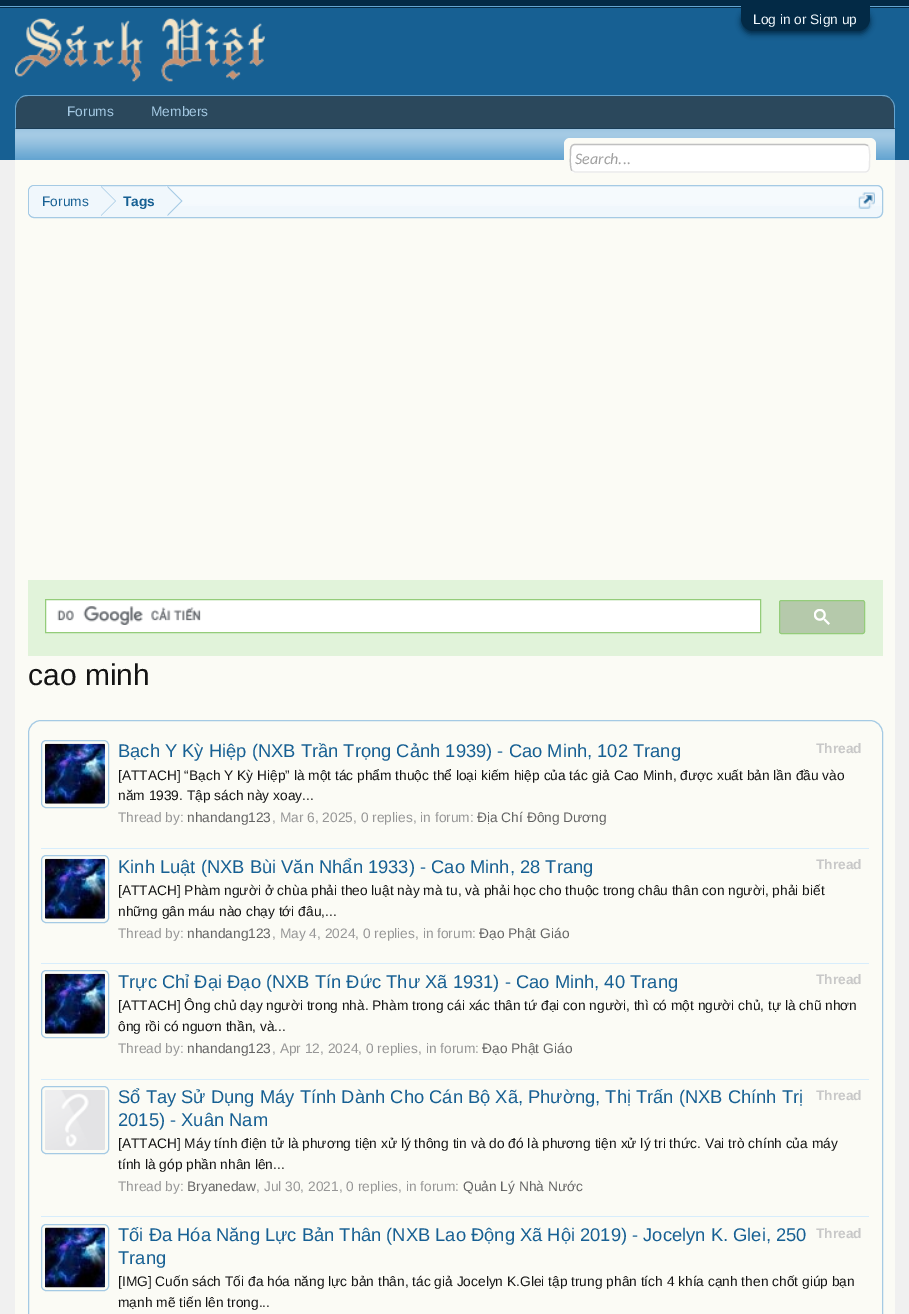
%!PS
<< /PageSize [909 1314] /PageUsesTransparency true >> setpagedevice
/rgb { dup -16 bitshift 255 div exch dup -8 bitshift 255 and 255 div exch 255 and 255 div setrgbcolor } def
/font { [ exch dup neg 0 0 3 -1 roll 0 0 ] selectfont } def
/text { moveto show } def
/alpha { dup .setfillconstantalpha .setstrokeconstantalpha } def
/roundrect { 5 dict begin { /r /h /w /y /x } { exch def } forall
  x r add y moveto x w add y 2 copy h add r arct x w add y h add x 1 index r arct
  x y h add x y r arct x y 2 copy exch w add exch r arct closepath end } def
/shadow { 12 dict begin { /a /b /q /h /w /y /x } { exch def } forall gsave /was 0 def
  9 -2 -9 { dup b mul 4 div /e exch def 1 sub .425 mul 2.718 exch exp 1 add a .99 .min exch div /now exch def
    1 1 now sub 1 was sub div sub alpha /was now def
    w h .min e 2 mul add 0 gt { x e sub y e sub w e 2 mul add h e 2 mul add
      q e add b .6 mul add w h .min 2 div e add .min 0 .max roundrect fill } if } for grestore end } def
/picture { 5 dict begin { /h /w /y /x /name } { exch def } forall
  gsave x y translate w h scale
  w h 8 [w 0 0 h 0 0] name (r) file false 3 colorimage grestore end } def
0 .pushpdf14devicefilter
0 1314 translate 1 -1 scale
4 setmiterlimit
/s1 { /LiberationSans-Regular 13.75 font 16#F0F7FC rgb } def
/s2 { /LiberationSans-Regular 13.75 font 16#A5CAE4 rgb } def
/s3 { /Carlito-Italic 16 font 16#A0A0A0 rgb } def
/s4 { /LiberationSans-Regular 13.75 font 16#176093 rgb } def
/s5 { /LiberationSans-Bold 13.75 font 16#176093 rgb } def
/s6 { /LiberationSans-Regular 30 font 16#141414 rgb } def
/s7 { /LiberationSans-Regular 18.35 font 16#176093 rgb } def
/s8 { /LiberationSans-Bold 13.75 font 16#C8C8C8 rgb } def
/s9 { /LiberationSans-Regular 13.75 font 16#141414 rgb } def
/s10 { /LiberationSans-Regular 13.75 font 16#969696 rgb } def
/s11 { /LiberationSans-Regular 13.75 font 16#646464 rgb } def
16#F0F0F0 rgb
0 0 909 1314 rectfill
16#032A46 rgb
0 0 909 8 rectfill
16#65A5D1 rgb
0 6 909 1 rectfill
16#176093 rgb
0 8 909 152 rectfill
16#032A46 rgb
741 9 129 25 12.5 3 1 shadow
741 6 moveto 870 6 lineto 870 18.5 lineto 870 25.5 864.5 31 857.5 31 curveto 753.5 31 lineto 746.5 31 741 25.5 741 18.5 curveto closepath fill
s1
(Log in or Sign up) 753 24 text
(pic1.raw) 15 18 250 64 picture
16#2B485C rgb
28 95 moveto 882 95 lineto 889 95 895 101 895 108 curveto 895 129 lineto 15 129 lineto 15 108 lineto 15 101 21 95 28 95 curveto closepath fill
16#65A5D1 rgb
28 95 moveto 24 95 21 96 19 99 curveto 22 97 24 96 28 96 curveto 882 96 lineto 886 96 888 97 891 99 curveto 889 96 886 95 882 95 curveto closepath fill
895 129 moveto 895 108 lineto 895 104.5 893.5 101 891 99 curveto 890.5 99.5 lineto 893 101.5 894 104.5 894 108 curveto 894 128 lineto closepath fill
16#032A46 rgb
895 129 moveto 15 129 lineto 16 128 lineto 894 128 lineto closepath fill
16#65A5D1 rgb
15 129 moveto 16 128 lineto 16 108 lineto 16 104.5 17 101.5 19.5 99.5 curveto 19 99 lineto 16.5 101 15 104.5 15 108 curveto closepath fill
s2
(Forums) 67 116 text
(Members) 151 116 text
16#65A5D1 rgb
15 129 880 31 rectfill
(pic2.raw) 15 128 880 30 picture
16#FBFBF5 rgb
15 160 880 1154 rectfill
564 138 312 35 6 roundrect fill
16#FFFFFF rgb
570 144 300 29 5 roundrect fill
16#E9E9E9 rgb
1.2 setlinewidth
868 145.5 moveto 870.5 148.5 869.5 160.5 869.5 164.5 curveto 869.5 167.5 869.5 172 865 172 curveto 575 172 lineto 572 170.5 lineto stroke
16#C0C0C0 rgb
572 170.5 moveto 569.5 168 570.5 155.5 570.5 152 curveto 570.5 148.5 570.5 144.5 575 144.5 curveto 865 144.5 lineto 868 145.5 lineto stroke
s3
(Search...) 575 164 text
16#F0F7FC rgb
28 185 855 33 6 roundrect fill
(pic3.raw) 28 187 854 19 picture
16#A5CAE4 rgb
1 setlinewidth
28.5 185.5 854 32 5.5 roundrect stroke
gsave
29 186 852 30 5 roundrect clip newpath
16#F0F7FC rgb
35 186 moveto 101 186 lineto 101 218 lineto 35 218 lineto 31.5 218 29 215.5 29 212 curveto 29 192 lineto 29 188.5 31.5 186 35 186 curveto closepath fill
grestore
s4
(Forums) 42 206 text
16#F0F7FC rgb
101 187 67 19 rectfill
16#A5CAE4 rgb
101 216 moveto 101 186 lineto 116 201 lineto closepath fill
16#F0F7FC rgb
100 216 moveto 100 186 lineto 115 201 lineto closepath fill
s5
(Tags) 123 206 text
16#A5CAE4 rgb
167.5 216 moveto 167.5 186 lineto 182.5 201 lineto closepath fill
16#F0F7FC rgb
166 216 moveto 166 186 lineto 181 201 lineto closepath fill
(pic4.raw) 858 192 17 17 picture
16#E1F3DA rgb
28 580 855 76 rectfill
16#FFFFFF rgb
45.5 599.5 moveto 760.5 599.5 lineto 760.5 632.5 lineto 45.5 632.5 lineto closepath gsave fill grestore
16#94CC7A rgb
stroke
(pic5.raw) 57 606 144 19 picture
16#B5C9AB rgb
779.5 600.5 85 33 2 roundrect gsave fill grestore
16#94CC7A rgb
stroke
(pic6.raw) 814 609 16 16 picture
s6
(cao minh) 28 685 text
16#A5CAE4 rgb
28.5 720.5 854 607 12.5 roundrect stroke
16#D7EDFC rgb
41 848 828 1 rectfill
16#A5CAE4 rgb
41.5 740.5 67 67 4.5 roundrect stroke
(pic7.raw) 45 743 60 61 picture
s7
(Bạch Y Kỳ Hiệp \(NXB Trần Trọng Cảnh 1939\) - Cao Minh, 102 Trang) 118 757 text
s8
(Thread) 816 753 text
s9
([ATTACH] “Bạch Y Kỳ Hiệp” là một tác phẩm thuộc thể loại kiếm hiệp của tác giả Cao Minh, được xuất bản lần đầu vào) 118 780 text
(năm 1939. Tập sách này xoay...) 118 800 text
s10
(Thread by:) 118 822 text
s11
(nhandang123) 187 822 text
s10
(, Mar 6, 2025, 0 replies, in forum:) 272 822 text
s11
(Địa Chí Đông Dương) 477 822 text
16#D7EDFC rgb
41 963 828 1 rectfill
16#A5CAE4 rgb
41.5 855.5 67 67 4.5 roundrect stroke
(pic7.raw) 45 858 60 61 picture
s7
(Kinh Luật \(NXB Bùi Văn Nhẩn 1933\) - Cao Minh, 28 Trang) 118 873 text
s8
(Thread) 816 869 text
s9
([ATTACH] Phàm người ở chùa phải theo luật này mà tu, và phải học cho thuộc trong châu thân con người, phải biết) 118 895 text
(những gân máu nào chạy tới đâu,...) 118 916 text
s10
(Thread by:) 118 938 text
s11
(nhandang123) 187 938 text
s10
(, May 4, 2024, 0 replies, in forum:) 272 938 text
s11
(Đạo Phật Giáo) 479 938 text
16#D7EDFC rgb
41 1079 828 1 rectfill
16#A5CAE4 rgb
41.5 970.5 67 67 4.5 roundrect stroke
(pic7.raw) 45 973 60 61 picture
s7
(Trực Chỉ Đại Đạo \(NXB Tín Đức Thư Xã 1931\) - Cao Minh, 40 Trang) 118 988 text
s8
(Thread) 816 984 text
s9
([ATTACH] Ông chủ dạy người trong nhà. Phàm trong cái xác thân tứ đại con người, thì có một người chủ, tự là chũ nhơn) 118 1010 text
(ông rồi có nguơn thần, và...) 118 1031 text
s10
(Thread by:) 118 1053 text
s11
(nhandang123) 187 1053 text
s10
(, Apr 12, 2024, 0 replies, in forum:) 272 1053 text
s11
(Đạo Phật Giáo) 482 1053 text
16#D7EDFC rgb
41 1216 828 1 rectfill
16#A5CAE4 rgb
41.5 1086.5 67 67 4.5 roundrect stroke
(pic8.raw) 45 1090 60 60 picture
s7
(Sổ Tay Sử Dụng Máy Tính Dành Cho Cán Bộ Xã, Phường, Thị Trấn \(NXB Chính Trị) 118 1103 text
(2015\) - Xuân Nam) 118 1126 text
s8
(Thread) 816 1100 text
s9
([ATTACH] Máy tính điện tử là phương tiện xử lý thông tin và do đó là phương tiện xử lý tri thức. Vai trò chính của máy) 118 1148 text
(tính là góp phần nhân lên...) 118 1169 text
s10
(Thread by:) 118 1191 text
s11
(Bryanedaw) 187 1191 text
s10
(, Jul 30, 2021, 0 replies, in forum:) 256 1191 text
s11
(Quản Lý Nhà Nước) 463 1191 text
16#A5CAE4 rgb
41.5 1224.5 67 66 4.5 roundrect stroke
(pic9.raw) 45 1227 60 61 picture
s7
(Tối Đa Hóa Năng Lực Bản Thân \(NXB Lao Động Xã Hội 2019\) - Jocelyn K. Glei, 250) 118 1241 text
(Trang) 118 1264 text
s8
(Thread) 816 1238 text
s9
([IMG] Cuốn sách Tối đa hóa năng lực bản thân, tác giả Jocelyn K.Glei tập trung phân tích 4 khía cạnh then chốt giúp bạn) 118 1286 text
(mạnh mẽ tiến lên trong...) 118 1307 text
.poppdf14devicefilter showpage
